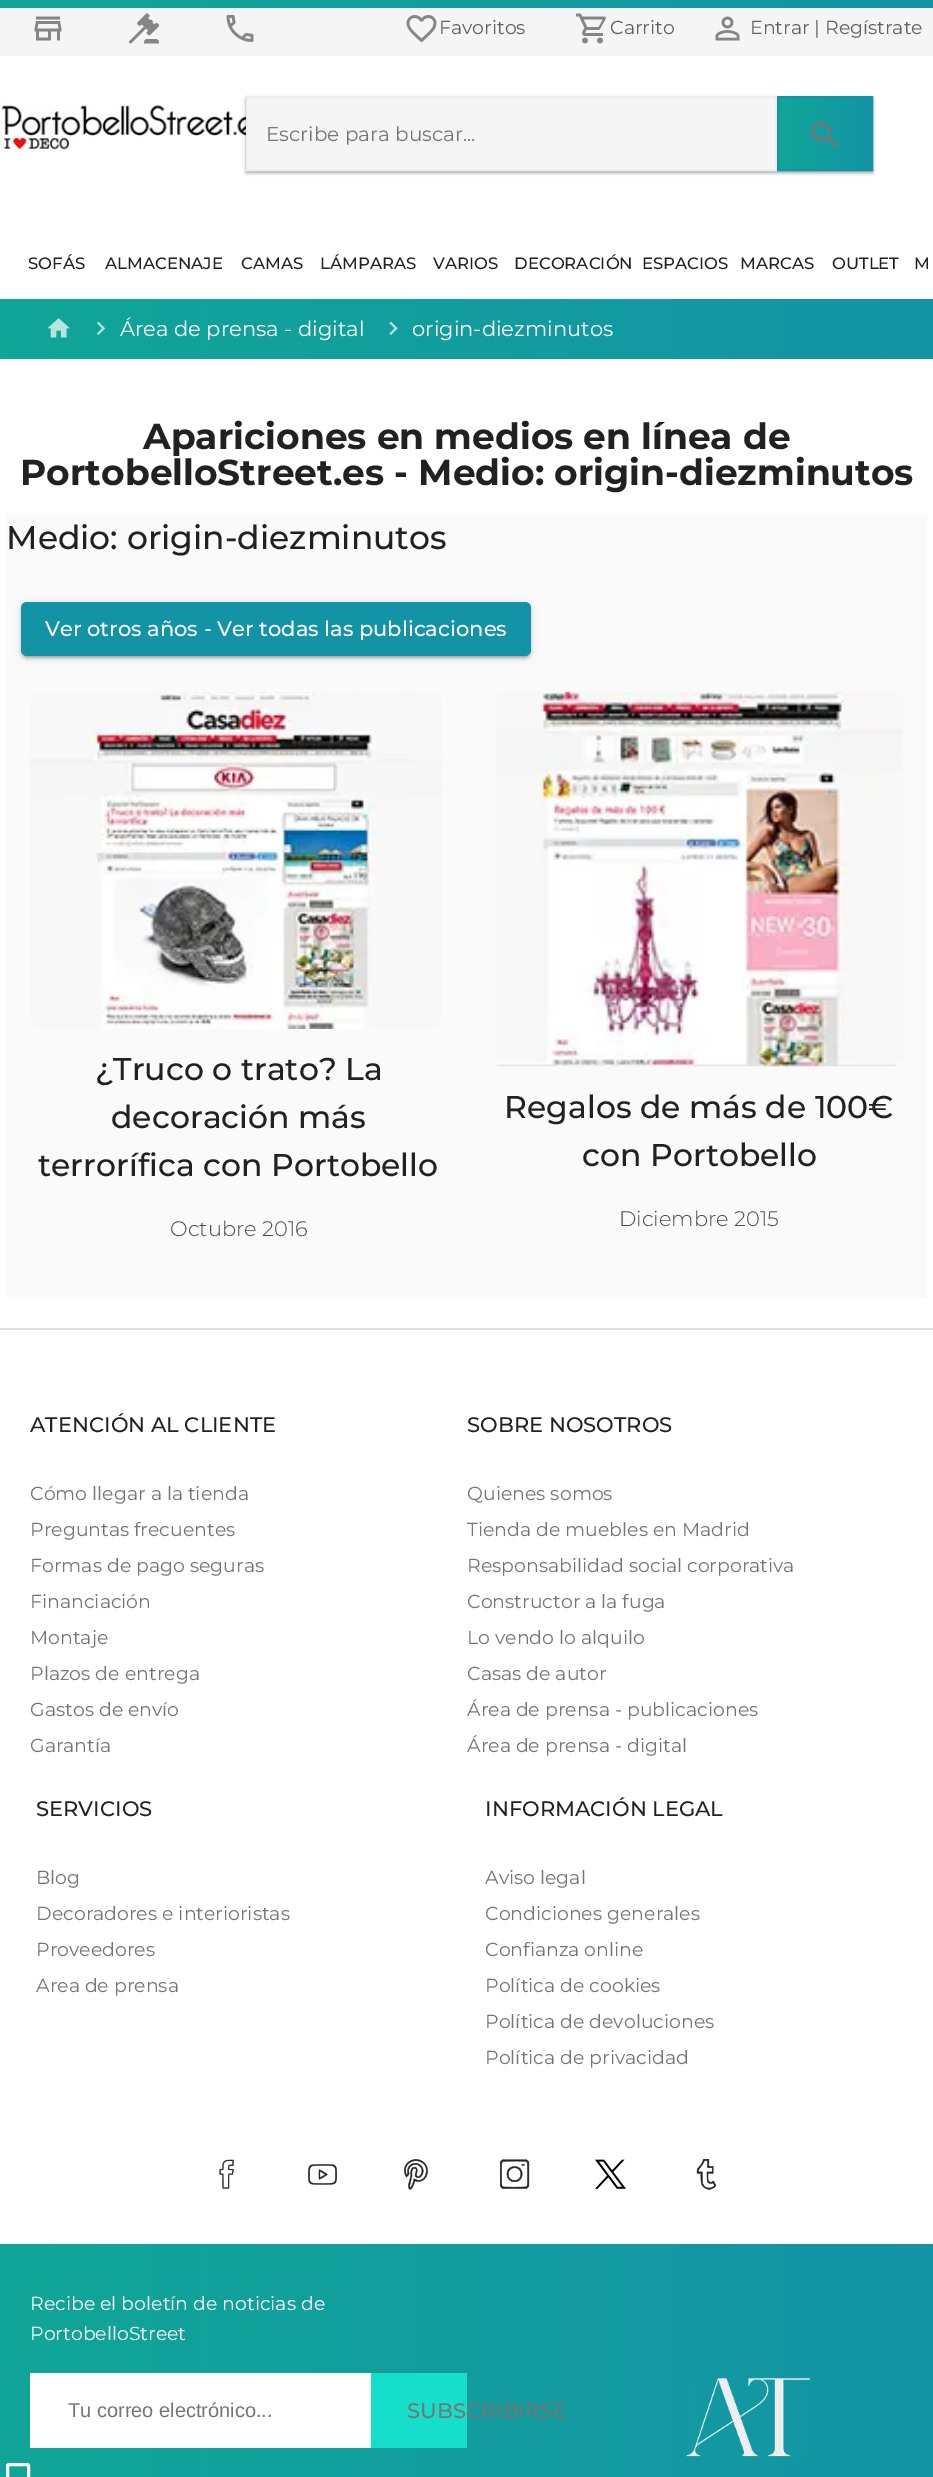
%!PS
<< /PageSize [933 2477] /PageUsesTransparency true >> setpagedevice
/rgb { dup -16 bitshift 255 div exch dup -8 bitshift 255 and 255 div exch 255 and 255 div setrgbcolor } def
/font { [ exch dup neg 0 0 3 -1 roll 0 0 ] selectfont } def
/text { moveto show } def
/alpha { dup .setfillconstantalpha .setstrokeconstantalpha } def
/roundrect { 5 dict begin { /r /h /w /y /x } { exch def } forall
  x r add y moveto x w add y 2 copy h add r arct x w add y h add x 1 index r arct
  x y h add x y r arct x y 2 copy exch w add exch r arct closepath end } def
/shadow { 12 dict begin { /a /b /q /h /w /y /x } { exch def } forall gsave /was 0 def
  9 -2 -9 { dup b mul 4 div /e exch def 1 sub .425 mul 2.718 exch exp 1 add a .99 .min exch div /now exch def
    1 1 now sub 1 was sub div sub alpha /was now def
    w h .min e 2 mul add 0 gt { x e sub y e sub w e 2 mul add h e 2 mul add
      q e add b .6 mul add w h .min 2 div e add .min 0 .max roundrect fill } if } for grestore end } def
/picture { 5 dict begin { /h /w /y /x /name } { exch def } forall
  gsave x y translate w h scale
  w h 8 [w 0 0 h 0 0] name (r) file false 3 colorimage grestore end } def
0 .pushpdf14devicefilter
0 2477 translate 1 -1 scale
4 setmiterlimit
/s1 { /Montserrat-Regular 18.9 font 16#616161 rgb } def
/s2 { /Montserrat-Regular 20 font 16#757575 rgb } def
/s3 { /Montserrat-Medium 16.5 font 16#212121 rgb } def
/s4 { /Montserrat-Regular 21 font 16#FFFFFF rgb } def
/s5 { /Montserrat-Bold 36 font 16#212121 rgb } def
/s6 { /Montserrat-Medium 33 font 16#212121 rgb } def
/s7 { /Montserrat-Medium 21 font 16#FFFFFF rgb } def
/s8 { /Montserrat-Medium 31.5 font 16#212121 rgb } def
/s9 { /Montserrat-Light 21 font 16#494950 rgb } def
/s10 { /Montserrat-Medium 21 font 16#212121 rgb } def
/s11 { /Montserrat-Regular 18.9 font 16#757575 rgb } def
/s12 { /Montserrat-Regular 18.9 font 16#FFFFFF rgb } def
/s13 { /LiberationSans-Regular 20 font 16#757575 rgb } def
/s14 { /Montserrat-Medium 21 font 16#757575 rgb } def
16#FFFFFF rgb
0 0 933 2477 rectfill
16#F5F5F5 rgb
0 8 933 48 rectfill
gsave 0 0 moveto 933 0 lineto 933 8 lineto 0 8 lineto closepath clip newpath
<< /ShadingType 2 /ColorSpace /DeviceRGB /Coords [0 3.8 933 3.7] /Extend [true true] /Function << /FunctionType 2 /Domain [0 1] /C0 [0.063 0.651 0.596] /C1 [0.075 0.58 0.651] /N 1 >> >> shfill grestore
(pic1.raw) 34 16 28 25 picture
(pic2.raw) 129 13 31 31 picture
(pic3.raw) 226 15 28 27 picture
(pic4.raw) 406 15 31 28 picture
s1
(Favoritos) 439 34 text
(pic5.raw) 576 13 30 31 picture
(Carrito) 610 34 text
(pic6.raw) 715 16 25 25 picture
(Entrar | Regístrate) 750 34 text
(pic7.raw) 0 102 246 51 picture
16#000000 rgb
246 98 627 75 0 1.5 0.24 shadow
246 98 627 75 0 2 0.12 shadow
16#F5F5F5 rgb
247 97 moveto 776 97 lineto 776 170 lineto 247 170 lineto closepath gsave fill grestore
16#EEEEEE rgb
2 setlinewidth
stroke
s2
(Escribe para buscar...) 266 141 text
gsave 779 98 moveto 871 98 lineto 871 169 lineto 779 169 lineto closepath clip newpath
<< /ShadingType 2 /ColorSpace /DeviceRGB /Coords [779 134 872 134] /Extend [true true] /Function << /FunctionType 2 /Domain [0 1] /C0 [0.063 0.651 0.596] /C1 [0.075 0.58 0.651] /N 1 >> >> shfill grestore
16#1394A6 rgb
778 97 94 73 rectstroke
(pic8.raw) 811 121 27 27 picture
s3
(SOFÁS) 28 269 text
(ALMACENAJE) 105 269 text
(CAMAS) 241 269 text
(LÁMPARAS) 320 269 text
(VARIOS) 433 269 text
(DECORACIÓN) 514 269 text
(ESPACIOS) 642 269 text
(MARCAS) 740 269 text
(OUTLET) 832 269 text
(M) 914 269 text
gsave 0 299 moveto 933 299 lineto 933 359 lineto 0 359 lineto closepath clip newpath
<< /ShadingType 2 /ColorSpace /DeviceRGB /Coords [0 329 933 328] /Extend [true true] /Function << /FunctionType 2 /Domain [0 1] /C0 [0.063 0.651 0.596] /C1 [0.075 0.58 0.651] /N 1 >> >> shfill grestore
(pic9.raw) 47 318 23 20 picture
(pic10.raw) 96 321 10 15 picture
s4
(Área de prensa - digital) 120 336 text
(pic11.raw) 389 321 9 15 picture
(origin-diezminutos) 412 336 text
s5
(Apariciones en medios en línea de) 143 449 text
(PortobelloStreet.es - Medio: origin-diezminutos) 20 485 text
16#FAFAFA rgb
6 515 921 783 rectfill
s6
(Medio: origin-diezminutos) 6 549 text
16#000000 rgb
21 603 510 54 6 4 0.12 shadow
21 605 510 54 6 1.5 0.14 shadow
24 609 504 48 3 1 0.2 shadow
16#1394A6 rgb
21 602 510 54 6 roundrect fill
s7
(Ver otros años - Ver todas las publicaciones) 45 636 text
(pic12.raw) 30 692 412 337 picture
s8
(¿Truco o trato? La) 95 1080 text
(decoración más) 111 1128 text
(terrorífica con Portobello) 38 1176 text
s9
(Octubre 2016) 170 1236 text
(pic13.raw) 496 691 407 376 picture
s8
(Regalos de más de 100€) 504 1118 text
(con Portobello) 582 1166 text
s9
(Diciembre 2015) 619 1226 text
16#E0E0E0 rgb
0 1328 933 2 rectfill
s10
(ATENCIÓN AL CLIENTE) 30 1432 text
s11
(Cómo llegar a la tienda) 30 1500 text
(Preguntas frecuentes) 30 1536 text
(Formas de pago seguras) 30 1572 text
(Financiación) 30 1608 text
(Montaje) 30 1644 text
(Plazos de entrega) 30 1680 text
(Gastos de envío) 30 1716 text
(Garantía) 30 1752 text
s10
(SOBRE NOSOTROS) 467 1432 text
s11
(Quienes somos) 467 1500 text
(Tienda de muebles en Madrid) 467 1536 text
(Responsabilidad social corporativa) 467 1572 text
(Constructor a la fuga) 467 1608 text
(Lo vendo lo alquilo) 467 1644 text
(Casas de autor) 467 1680 text
(Área de prensa - publicaciones) 467 1716 text
(Área de prensa - digital) 467 1752 text
s10
(SERVICIOS) 36 1816 text
s11
(Blog) 36 1884 text
(Decoradores e interioristas) 36 1920 text
(Proveedores) 36 1956 text
(Area de prensa) 36 1992 text
s10
(INFORMACIÓN LEGAL) 485 1816 text
s11
(Aviso legal) 485 1884 text
(Condiciones generales) 485 1920 text
(Confianza online) 485 1956 text
(Política de cookies) 485 1992 text
(Política de devoluciones) 485 2028 text
(Política de privacidad) 485 2064 text
(pic14.raw) 219 2159 15 30 picture
(pic15.raw) 308 2164 30 21 picture
(pic16.raw) 404 2159 24 31 picture
(pic17.raw) 499 2159 31 30 picture
(pic18.raw) 595 2159 31 30 picture
(pic19.raw) 696 2159 21 31 picture
gsave 0 2244 moveto 933 2244 lineto 933 2477 lineto 0 2477 lineto closepath clip newpath
<< /ShadingType 2 /ColorSpace /DeviceRGB /Coords [0 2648 933 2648] /Extend [true true] /Function << /FunctionType 2 /Domain [0 1] /C0 [0.063 0.651 0.596] /C1 [0.075 0.58 0.651] /N 1 >> >> shfill grestore
s12
(Recibe el boletín de noticias de) 30 2310 text
(PortobelloStreet) 30 2340 text
30 2373 341 75 rectfill
s13
(Tu correo electrónico...) 68 2417 text
16#15DECB rgb
371 2373 96 75 rectfill
s14
(SUBSCRIBIRSE) 407 2418 text
16#FFFFFF rgb
3 setlinewidth
7.5 2464.5 21 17 1.5 roundrect stroke
(pic20.raw) 686 2378 125 79 picture
.poppdf14devicefilter showpage
